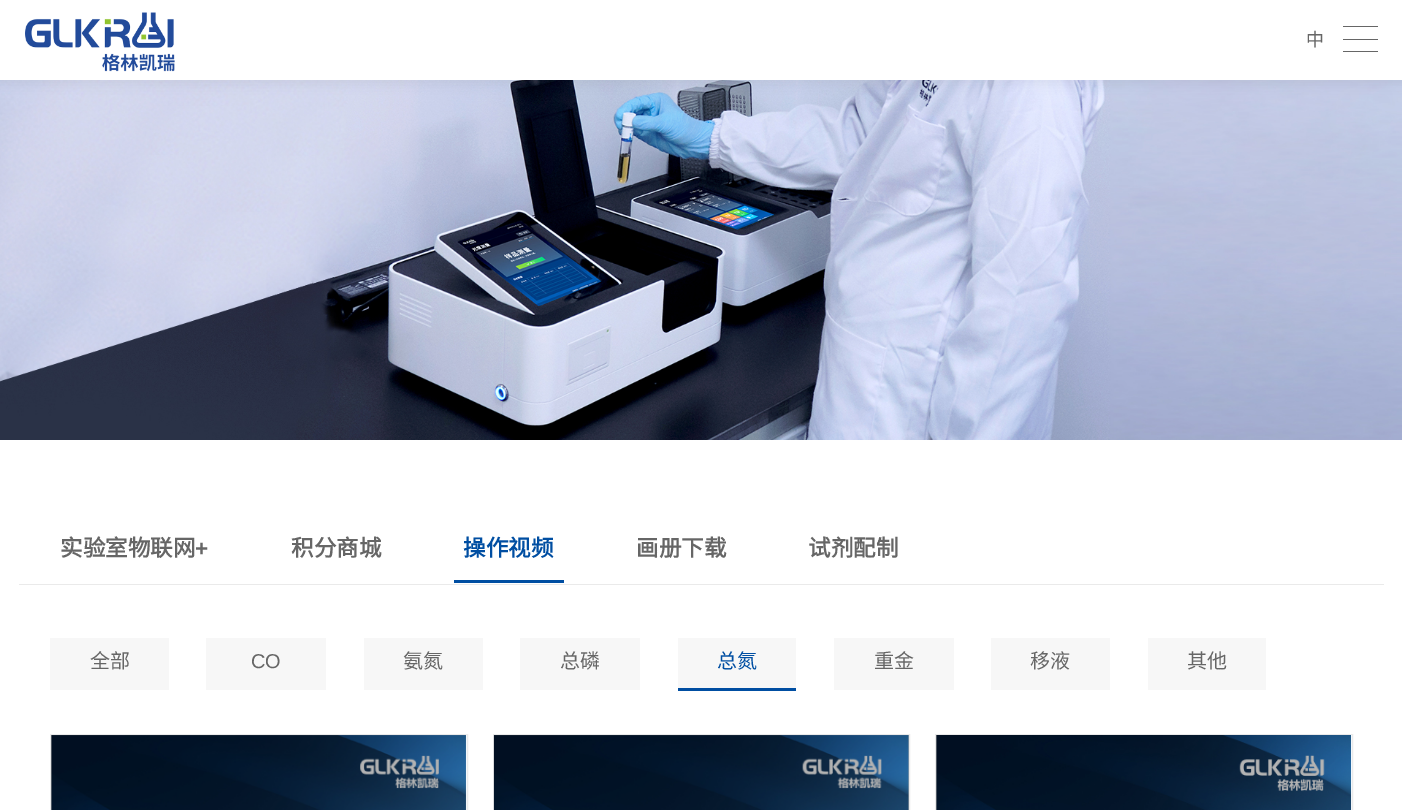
%!PS
<< /PageSize [1402 810] /PageUsesTransparency true >> setpagedevice
/rgb { dup -16 bitshift 255 div exch dup -8 bitshift 255 and 255 div exch 255 and 255 div setrgbcolor } def
/font { [ exch dup neg 0 0 3 -1 roll 0 0 ] selectfont } def
/text { moveto show } def
/alpha { dup .setfillconstantalpha .setstrokeconstantalpha } def
/roundrect { 5 dict begin { /r /h /w /y /x } { exch def } forall
  x r add y moveto x w add y 2 copy h add r arct x w add y h add x 1 index r arct
  x y h add x y r arct x y 2 copy exch w add exch r arct closepath end } def
/shadow { 12 dict begin { /a /b /q /h /w /y /x } { exch def } forall gsave /was 0 def
  9 -2 -9 { dup b mul 4 div /e exch def 1 sub .425 mul 2.718 exch exp 1 add a .99 .min exch div /now exch def
    1 1 now sub 1 was sub div sub alpha /was now def
    w h .min e 2 mul add 0 gt { x e sub y e sub w e 2 mul add h e 2 mul add
      q e add b .6 mul add w h .min 2 div e add .min 0 .max roundrect fill } if } for grestore end } def
/picture { 5 dict begin { /h /w /y /x /name } { exch def } forall
  gsave x y translate w h scale
  w h 8 [w 0 0 h 0 0] name (r) file false 3 colorimage grestore end } def
0 .pushpdf14devicefilter
0 810 translate 1 -1 scale
4 setmiterlimit
/s1 { /NotoSansCJKSC-Regular 18 font 16#666666 rgb } def
/s2 { /NotoSansCJKSC-Bold 22.5 font 16#666666 rgb } def
/s3 { /LiberationSans-Bold 22.5 font 16#666666 rgb } def
/s4 { /NotoSansCJKSC-Bold 22.5 font 16#004EA2 rgb } def
/s5 { /NotoSansCJKSC-Regular 20 font 16#666666 rgb } def
/s6 { /LiberationSans-Regular 20 font 16#666666 rgb } def
/s7 { /NotoSansCJKSC-Regular 20 font 16#004EA2 rgb } def
16#FFFFFF rgb
0 0 1402 810 rectfill
16#B3B3B3 rgb
936 735 1 75 rectfill
51 735 415 75 rectfill
(pic2.raw) 0 80 1402 360 picture
16#000000 rgb
-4 -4 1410 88 0 6 0.05 shadow
16#FFFFFF rgb
0 0 1402 80 rectfill
(pic1.raw) 25 12 150 60 picture
s1
(中) 1306 46 text
1343 39 35 1 rectfill
1343 26 35 1 rectfill
1343 51 35 1 rectfill
16#EAEAEA rgb
19 584 1365 1 rectfill
s2
(实验室物联网) 60 556 text
s3
(+) 195 556 text
s2
(积分商城) 291 556 text
s4
(操作视频) 463 556 text
454 580 110 3 rectfill
s2
(画册下载) 636 556 text
(试剂配制) 808 556 text
16#F7F7F7 rgb
50 638 119 52 rectfill
s5
(全部) 90 668 text
16#F7F7F7 rgb
206 638 120 52 rectfill
s6
(CO) 251 668 text
16#F7F7F7 rgb
364 638 119 52 rectfill
s5
(氨氮) 403 668 text
16#F7F7F7 rgb
520 638 120 52 rectfill
s5
(总磷) 560 668 text
16#F7F7F7 rgb
678 638 118 50 rectfill
16#004EA2 rgb
678 688 118 3 rectfill
(总氮) 717 668 text
16#F7F7F7 rgb
834 638 120 52 rectfill
s5
(重金) 874 668 text
16#F7F7F7 rgb
991 638 119 52 rectfill
s5
(移液) 1030 668 text
16#F7F7F7 rgb
1148 638 118 52 rectfill
s5
(其他) 1187 668 text
16#EAEAEA rgb
50.5 734.5 417 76 rectstroke
(pic3.raw) 51 735 416 75 picture
16#B3B3B3 rgb
493.5 734.5 moveto 909.5 734.5 lineto 909.5 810.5 lineto 493.5 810.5 lineto closepath gsave fill grestore
16#EAEAEA rgb
stroke
(pic4.raw) 493 735 416 75 picture
935.5 734.5 417 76 rectstroke
(pic5.raw) 936 735 416 75 picture
.poppdf14devicefilter showpage
